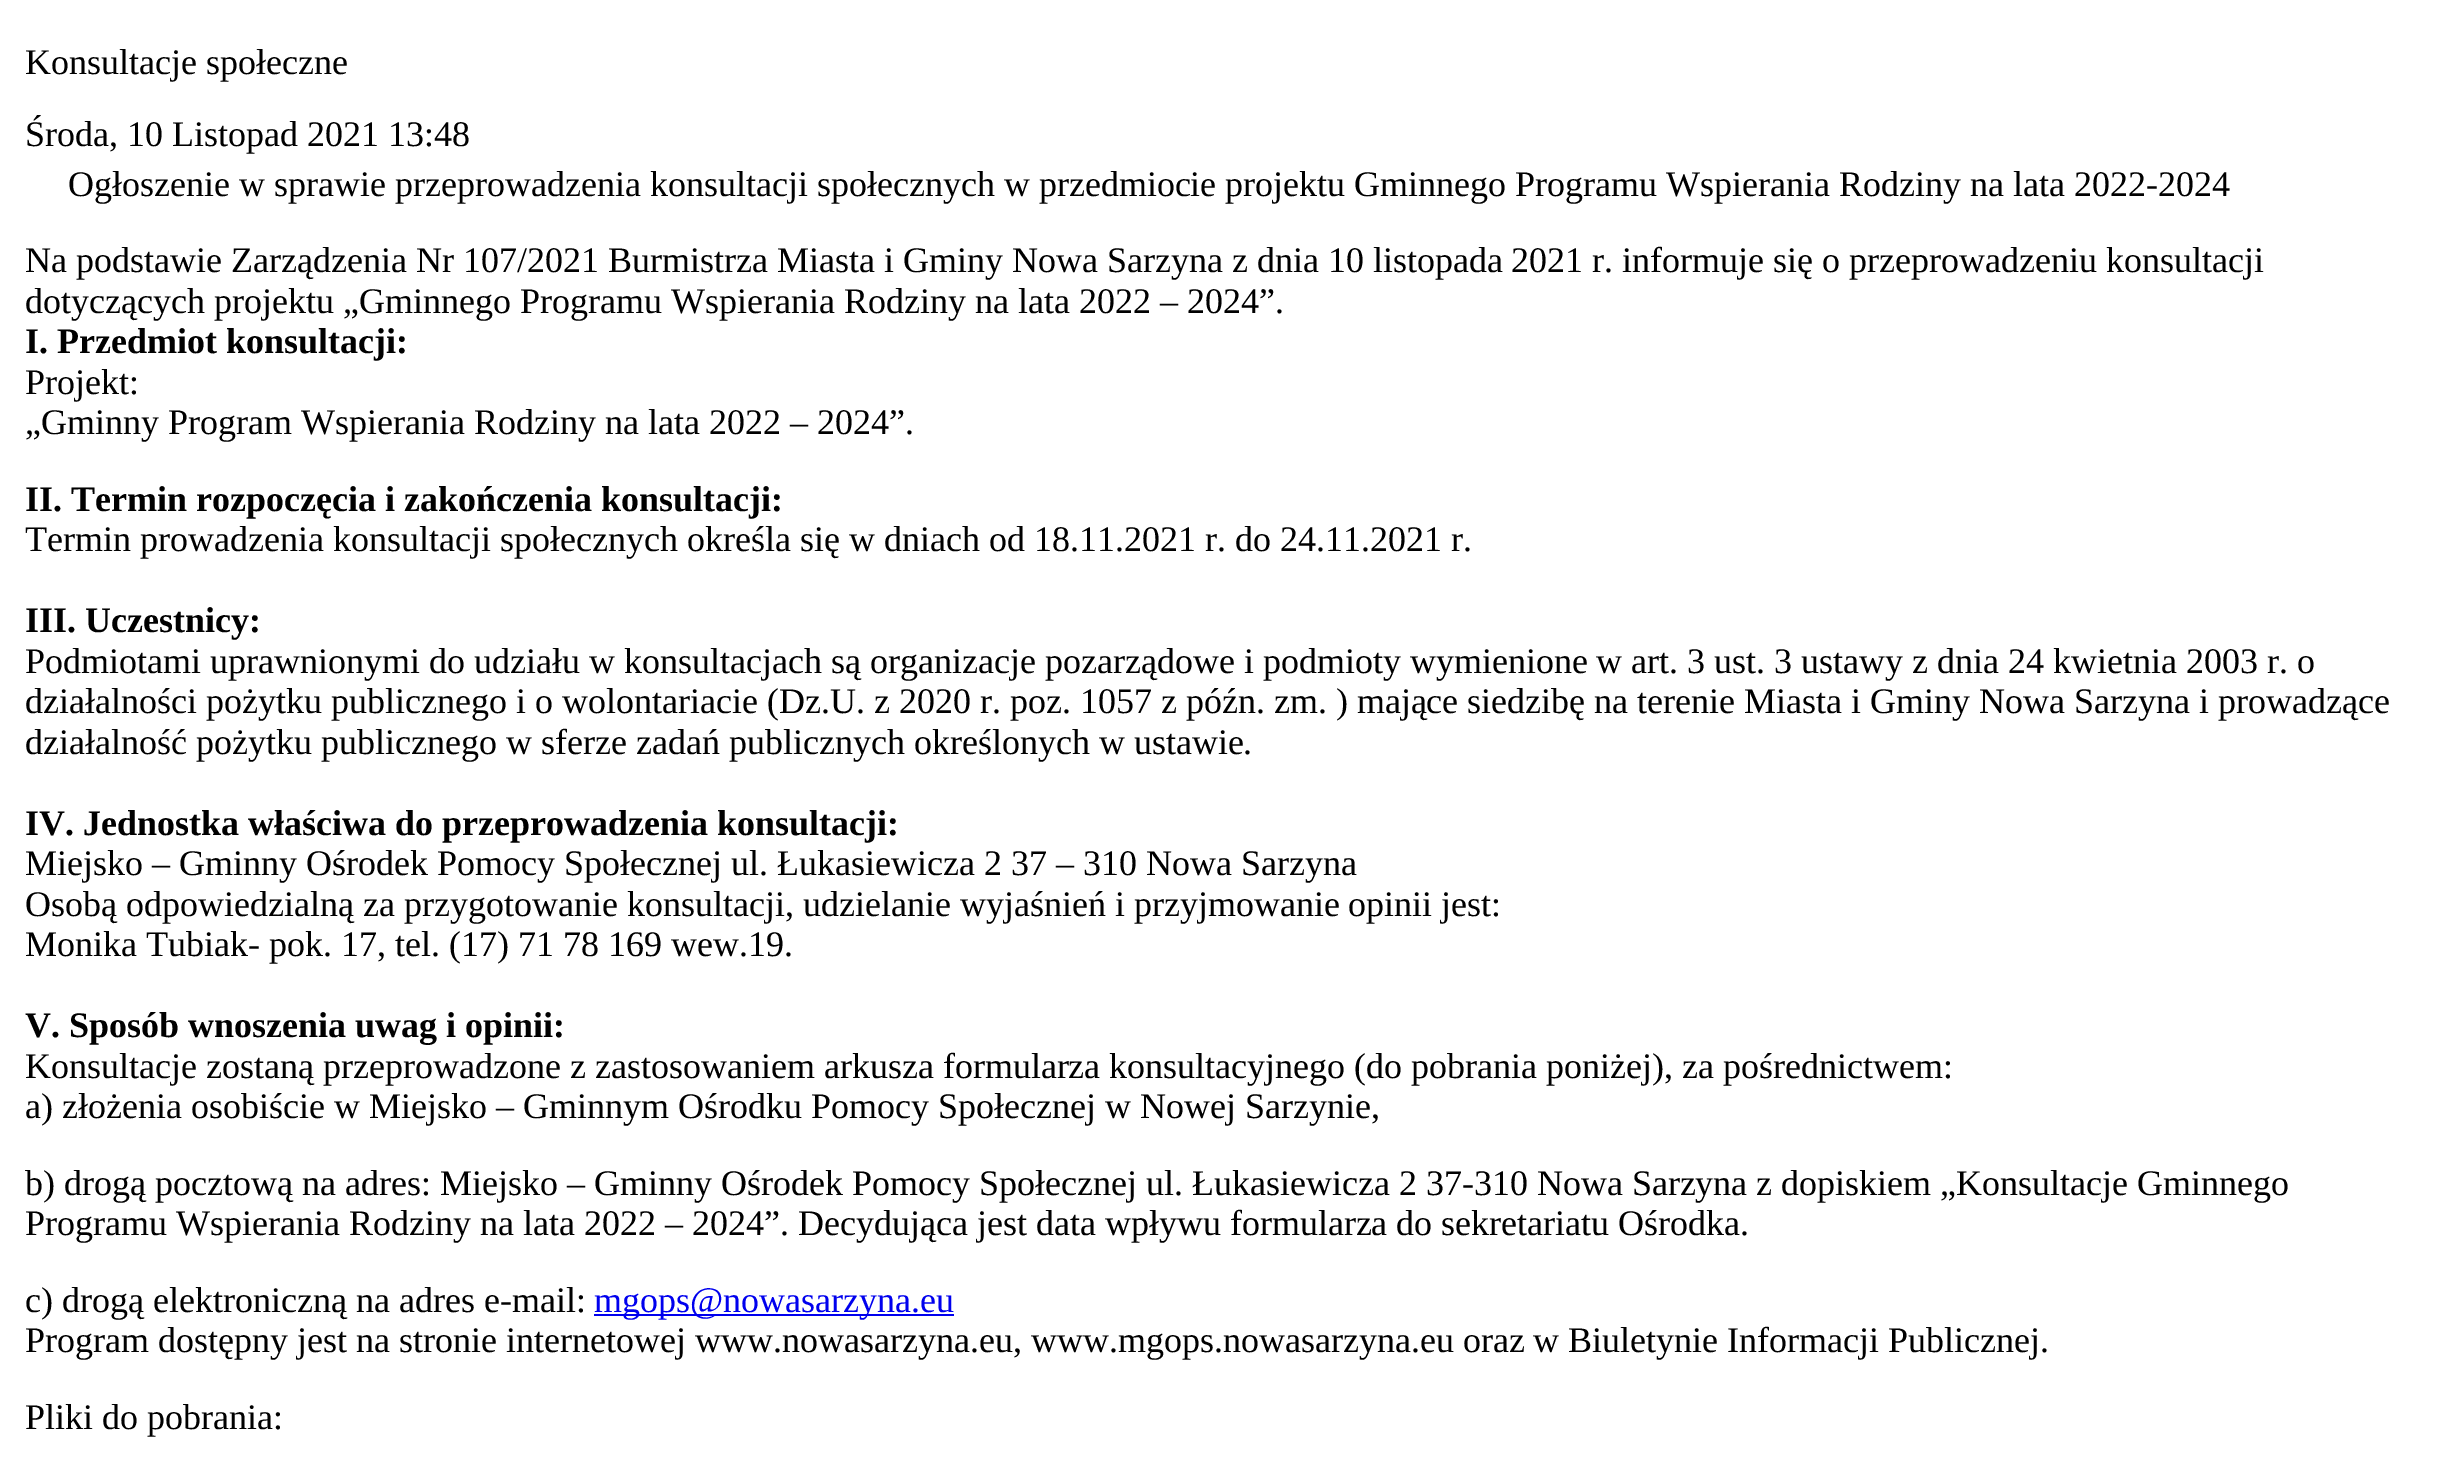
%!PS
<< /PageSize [2447 1475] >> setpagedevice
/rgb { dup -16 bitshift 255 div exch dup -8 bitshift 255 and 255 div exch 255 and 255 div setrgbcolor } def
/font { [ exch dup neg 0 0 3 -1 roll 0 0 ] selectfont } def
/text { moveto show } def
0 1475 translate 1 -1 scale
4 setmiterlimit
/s1 { /LiberationSerif-Regular 36 font 16#000000 rgb } def
/s2 { /LiberationSerif-Bold 36 font 16#000000 rgb } def
/s3 { /LiberationSerif-Regular 36 font 16#0000EE rgb } def
16#FFFFFF rgb
0 0 2447 1475 rectfill
s1
(Konsultacje społeczne) 25 74 text
(Środa, 10 Listopad 2021 13:48) 25 146 text
(Ogłoszenie w sprawie przeprowadzenia konsultacji społecznych w przedmiocie projektu Gminnego Programu Wspierania Rodziny na lata 2022-2024) 68 196 text
(Na podstawie Zarządzenia Nr 107/2021 Burmistrza Miasta i Gminy Nowa Sarzyna z dnia 10 listopada 2021 r. informuje się o przeprowadzeniu konsultacji) 25 272 text
(dotyczących projektu „Gminnego Programu Wspierania Rodziny na lata 2022 – 2024”.) 25 313 text
s2
(I. Przedmiot konsultacji:) 25 353 text
s1
(Projekt:) 25 394 text
(„Gminny Program Wspierania Rodziny na lata 2022 – 2024”.) 25 434 text
s2
(II. Termin rozpoczęcia i zakończenia konsultacji:) 25 511 text
s1
(Termin prowadzenia konsultacji społecznych określa się w dniach od 18.11.2021 r. do 24.11.2021 r.) 25 551 text
s2
(III. Uczestnicy:) 25 632 text
s1
(Podmiotami uprawnionymi do udziału w konsultacjach są organizacje pozarządowe i podmioty wymienione w art. 3 ust. 3 ustawy z dnia 24 kwietnia 2003 r. o) 25 673 text
(działalności pożytku publicznego i o wolontariacie \(Dz.U. z 2020 r. poz. 1057 z późn. zm. \) mające siedzibę na terenie Miasta i Gminy Nowa Sarzyna i prowadzące) 25 713 text
(działalność pożytku publicznego w sferze zadań publicznych określonych w ustawie.) 25 754 text
s2
(IV. Jednostka właściwa do przeprowadzenia konsultacji:) 25 835 text
s1
(Miejsko – Gminny Ośrodek Pomocy Społecznej ul. Łukasiewicza 2 37 – 310 Nowa Sarzyna) 25 875 text
(Osobą odpowiedzialną za przygotowanie konsultacji, udzielanie wyjaśnień i przyjmowanie opinii jest:) 25 916 text
(Monika Tubiak- pok. 17, tel. \(17\) 71 78 169 wew.19.) 25 956 text
s2
(V. Sposób wnoszenia uwag i opinii:) 25 1037 text
s1
(Konsultacje zostaną przeprowadzone z zastosowaniem arkusza formularza konsultacyjnego \(do pobrania poniżej\), za pośrednictwem:) 25 1078 text
(a\) złożenia osobiście w Miejsko – Gminnym Ośrodku Pomocy Społecznej w Nowej Sarzynie,) 25 1118 text
(b\) drogą pocztową na adres: Miejsko – Gminny Ośrodek Pomocy Społecznej ul. Łukasiewicza 2 37-310 Nowa Sarzyna z dopiskiem „Konsultacje Gminnego) 25 1195 text
(Programu Wspierania Rodziny na lata 2022 – 2024”. Decydująca jest data wpływu formularza do sekretariatu Ośrodka.) 25 1235 text
(c\) drogą elektroniczną na adres e-mail:) 25 1312 text
16#0000EE rgb
594 1314 360 2 rectfill
(mgops@nowasarzyna.eu) 594 1312 text
s1
(Program dostępny jest na stronie internetowej www.nowasarzyna.eu, www.mgops.nowasarzyna.eu oraz w Biuletynie Informacji Publicznej.) 25 1352 text
(Pliki do pobrania:) 25 1429 text
showpage
